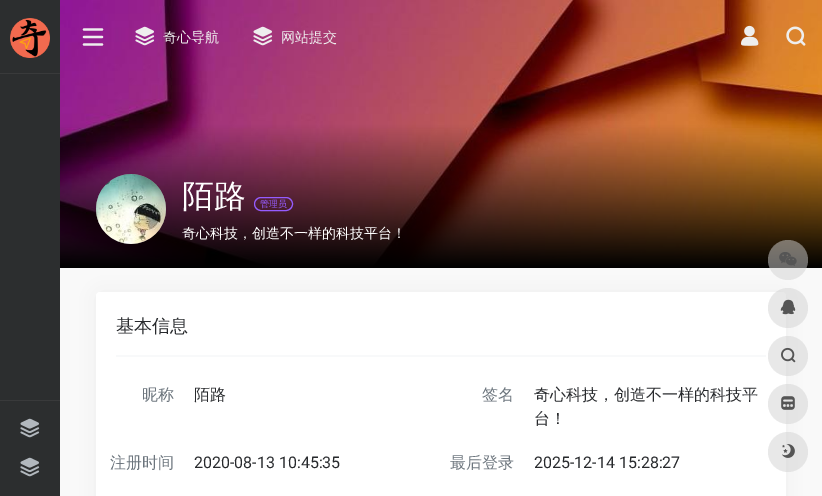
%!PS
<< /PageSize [822 496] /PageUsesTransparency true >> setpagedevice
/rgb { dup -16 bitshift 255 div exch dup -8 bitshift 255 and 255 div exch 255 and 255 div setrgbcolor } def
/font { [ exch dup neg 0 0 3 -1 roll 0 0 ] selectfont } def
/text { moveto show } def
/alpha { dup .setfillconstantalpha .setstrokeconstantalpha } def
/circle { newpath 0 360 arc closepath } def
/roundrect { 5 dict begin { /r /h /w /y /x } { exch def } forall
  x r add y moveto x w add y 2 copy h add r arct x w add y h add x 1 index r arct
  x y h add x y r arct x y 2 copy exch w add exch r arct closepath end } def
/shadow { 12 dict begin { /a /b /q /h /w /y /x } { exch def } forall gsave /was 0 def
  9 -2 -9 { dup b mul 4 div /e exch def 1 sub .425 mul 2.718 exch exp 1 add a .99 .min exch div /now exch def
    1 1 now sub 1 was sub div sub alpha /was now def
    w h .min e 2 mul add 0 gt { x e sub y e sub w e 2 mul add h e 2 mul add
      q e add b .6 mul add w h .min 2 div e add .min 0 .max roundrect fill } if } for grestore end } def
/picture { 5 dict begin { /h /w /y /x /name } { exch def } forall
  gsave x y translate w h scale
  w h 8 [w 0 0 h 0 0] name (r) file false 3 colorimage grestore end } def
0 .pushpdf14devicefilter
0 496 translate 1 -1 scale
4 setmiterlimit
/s1 { /WenQuanYiZenHei-Medium 14 font 16#EEEEEE rgb } def
/s2 { /WenQuanYiZenHei-Medium 32 font 16#FFFFFF rgb } def
/s3 { /WenQuanYiZenHei-Medium 9 font 16#955CFF rgb } def
/s4 { /WenQuanYiZenHei-Medium 14 font 16#FFFFFF rgb } def
/s5 { /WenQuanYiZenHei-Medium 18 font 16#282A2D rgb } def
/s6 { /WenQuanYiZenHei-Medium 16 font 16#6C757D rgb } def
/s7 { /WenQuanYiZenHei-Medium 16 font 16#282A2D rgb } def
/s8 { /Roboto-Regular 16 font 16#282A2D rgb } def
16#F9F9F9 rgb
0 0 822 496 rectfill
16#2C2E2F rgb
0 0 60 496 rectfill
16#393A3B rgb
0 73 60 1 rectfill
(pic1.raw) 10 18 40 40 picture
0 400 60 1 rectfill
(pic2.raw) 20 418 20 20 picture
(pic2.raw) 20 457 20 20 picture
(pic7.raw) 60 0 762 268 picture
16#EEEEEE rgb
2.2 setlinewidth
1 setlinecap
1 setlinejoin
84 29.5 moveto 102 29.5 lineto 84 37 moveto 102 37 lineto 84 44.5 moveto 102 44.5 lineto stroke
(pic3.raw) 135 26 20 20 picture
s1
(奇心导航) 163 42 text
(pic4.raw) 253 26 20 20 picture
(网站提交) 281 42 text
(pic5.raw) 741 25 18 21 picture
(pic6.raw) 786 26 20 20 picture
16#888888 rgb
131 209 35 circle fill
(pic8.raw) 96 174 70 70 picture
s2
(陌路) 182 207 text
16#955CFF rgb
1 setlinewidth
0 setlinecap
0 setlinejoin
254.5 197.5 38 13 6.5 roundrect stroke
s3
(管理员) 260 207 text
s4
(奇心科技，创造不一样的科技平台！) 182 238 text
16#9E9E9E rgb
101 297 680 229 0 10 0.2 shadow
16#FFFFFF rgb
96 292 690 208 4 roundrect fill
16#F8F9FA rgb
116 355 650 2 rectfill
s5
(基本信息) 116 332 text
s6
(昵称) 142 400 text
s7
(陌路) 194 400 text
s6
(签名) 482 400 text
s7
(奇心科技，创造不一样的科技平) 534 400 text
(台！) 534 424 text
s6
(注册时间) 110 468 text
s8
(2020-08-13 10:45:35) 194 468 text
s6
(最后登录) 450 468 text
s8
(2025-12-14 15:28:27) 534 468 text
0.5 alpha
16#D2D2D2 rgb
788 260 20 circle fill
1 alpha
(pic9.raw) 779 252 18 14 picture
0.5 alpha
788 308 20 circle fill
1 alpha
(pic10.raw) 780 299 16 16 picture
0.5 alpha
788 356 20 circle fill
1 alpha
(pic11.raw) 781 347 15 16 picture
0.5 alpha
788 404 20 circle fill
1 alpha
(pic12.raw) 781 396 14 14 picture
0.5 alpha
788 452 20 circle fill
1 alpha
(pic13.raw) 782 444 13 14 picture
.poppdf14devicefilter showpage
